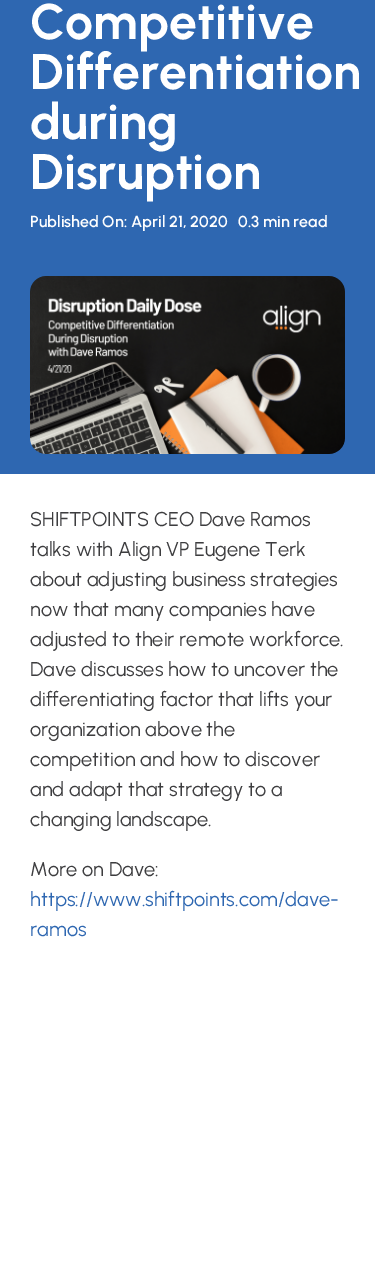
%!PS
<< /PageSize [375 1282] >> setpagedevice
/rgb { dup -16 bitshift 255 div exch dup -8 bitshift 255 and 255 div exch 255 and 255 div setrgbcolor } def
/font { [ exch dup neg 0 0 3 -1 roll 0 0 ] selectfont } def
/text { moveto show } def
/picture { 5 dict begin { /h /w /y /x /name } { exch def } forall
  gsave x y translate w h scale
  w h 8 [w 0 0 h 0 0] name (r) file false 3 colorimage grestore end } def
0 1282 translate 1 -1 scale
4 setmiterlimit
/s1 { /Urbanist-Bold 50 font 16#FFFFFF rgb } def
/s2 { /Urbanist-SemiBold 16 font 16#FFFFFF rgb } def
/s3 { /Urbanist-Regular 20 font 16#3D3D3F rgb } def
/s4 { /Urbanist-Regular 20 font 16#2E67B1 rgb } def
16#FFFFFF rgb
0 0 375 1282 rectfill
16#2E67B1 rgb
0 0 375 474 rectfill
s1
(Competitive) 30 39 text
(Differentiation) 30 89 text
(during) 30 139 text
(Disruption) 30 189 text
s2
(Published On: April 21, 2020) 30 227 text
(0.3 min read) 238 227 text
(pic1.raw) 30 276 315 178 picture
s3
(SHIFTPOINTS CEO Dave Ramos) 30 526 text
(talks with Align VP Eugene Terk) 30 556 text
(about adjusting business strategies) 30 586 text
(now that many companies have) 30 616 text
(adjusted to their remote workforce.) 30 646 text
(Dave discusses how to uncover the) 30 676 text
(differentiating factor that lifts your) 30 706 text
(organization above the) 30 736 text
(competition and how to discover) 30 766 text
(and adapt that strategy to a) 30 796 text
(changing landscape.) 30 826 text
(More on Dave:) 30 876 text
s4
(https://www.shiftpoints.com/dave-) 30 906 text
(ramos) 30 936 text
showpage
